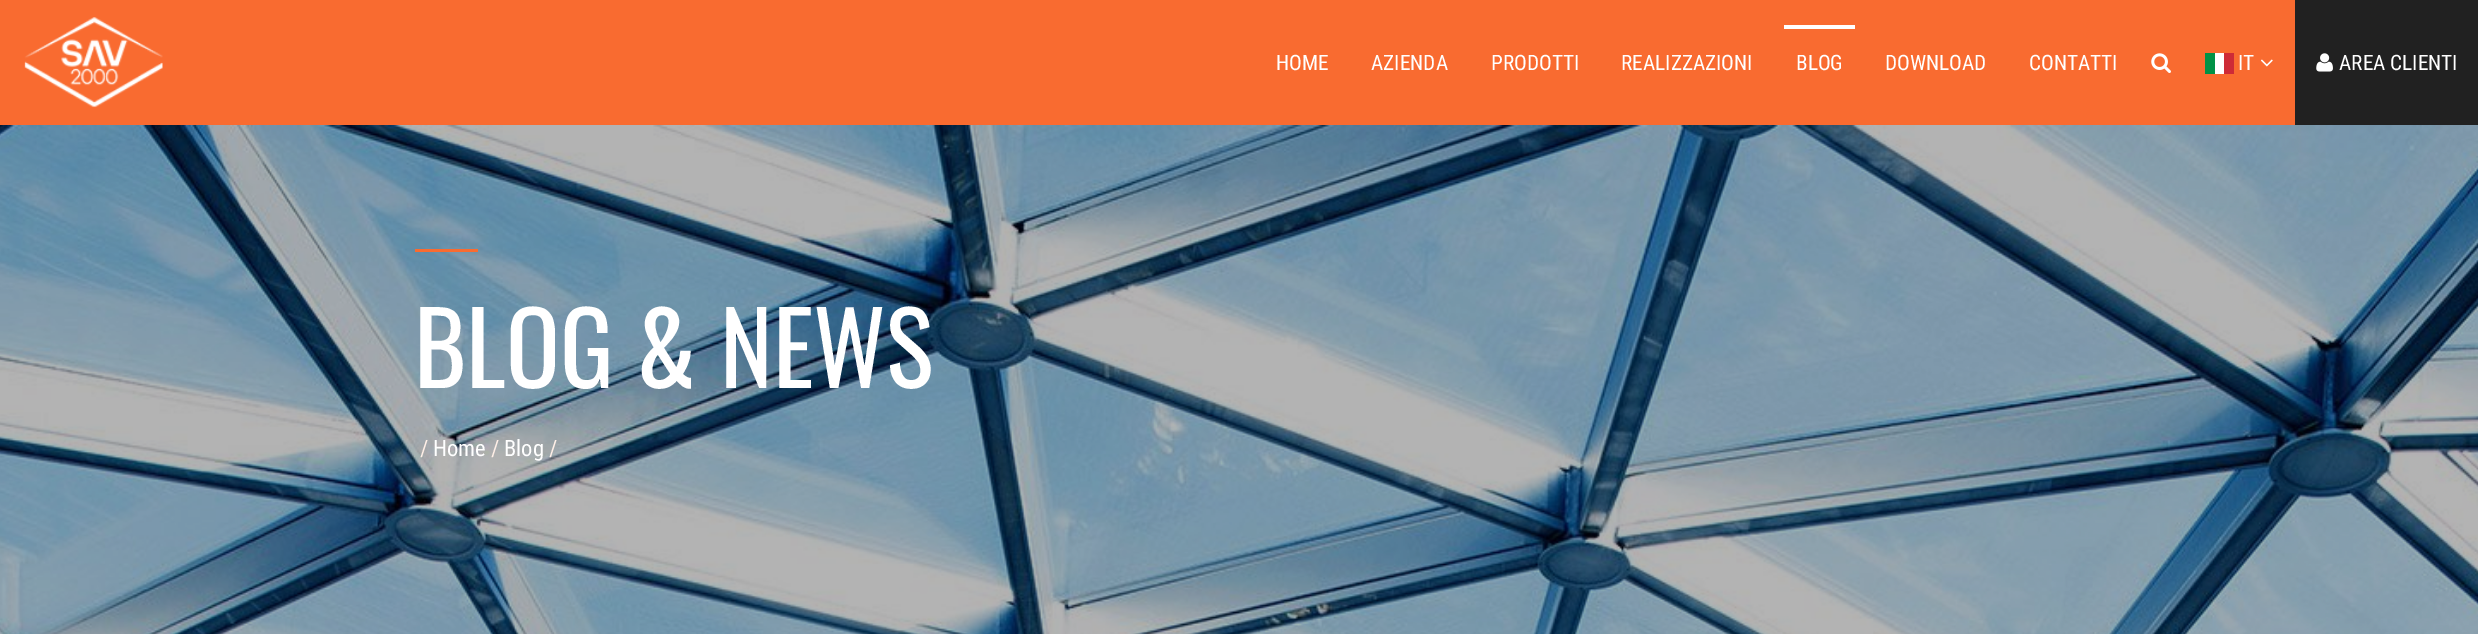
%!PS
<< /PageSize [2478 634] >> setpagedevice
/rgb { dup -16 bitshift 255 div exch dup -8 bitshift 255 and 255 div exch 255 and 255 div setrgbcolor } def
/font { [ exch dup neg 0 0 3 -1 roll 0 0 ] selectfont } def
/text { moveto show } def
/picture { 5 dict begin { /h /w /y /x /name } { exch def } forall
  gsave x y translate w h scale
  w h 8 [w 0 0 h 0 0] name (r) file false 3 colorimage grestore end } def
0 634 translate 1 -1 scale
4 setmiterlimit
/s1 { /RobotoCondensed-Regular 21.25 font 16#FFFFFF rgb } def
/s2 { /Oswald-Regular 100 font 16#FFFFFF rgb } def
/s3 { /RobotoCondensed-Regular 22.5 font 16#FFEFE7 rgb } def
/s4 { /RobotoCondensed-Regular 22.5 font 16#FFFFFF rgb } def
16#F96B30 rgb
0 0 2478 634 rectfill
(pic1.raw) 24 17 139 91 picture
s1
(HOME) 1276 70 text
(AZIENDA) 1371 70 text
(PRODOTTI) 1491 70 text
(REALIZZAZIONI) 1621 70 text
1784 25 71 4 rectfill
(BLOG) 1796 70 text
(DOWNLOAD) 1885 70 text
(CONTATTI) 2029 70 text
(pic2.raw) 2151 53 20 20 picture
2215 53 9 21 rectfill
16#009246 rgb
2205 53 10 21 rectfill
16#CE2B37 rgb
2224 53 10 21 rectfill
s1
(IT) 2238 70 text
(pic3.raw) 2261 59 12 8 picture
16#212121 rgb
2295 0 183 125 rectfill
(pic4.raw) 2316 53 17 19 picture
s1
(AREA CLIENTI) 2339 70 text
(pic5.raw) 0 125 2478 509 picture
16#F96B30 rgb
415 249 63 3 rectfill
s2
(BLOG & NEWS) 414 388 text
s3
(/) 420 456 text
s4
(Home) 433 456 text
s3
(/) 491 456 text
s4
(Blog) 504 456 text
s3
(/) 549 456 text
showpage
